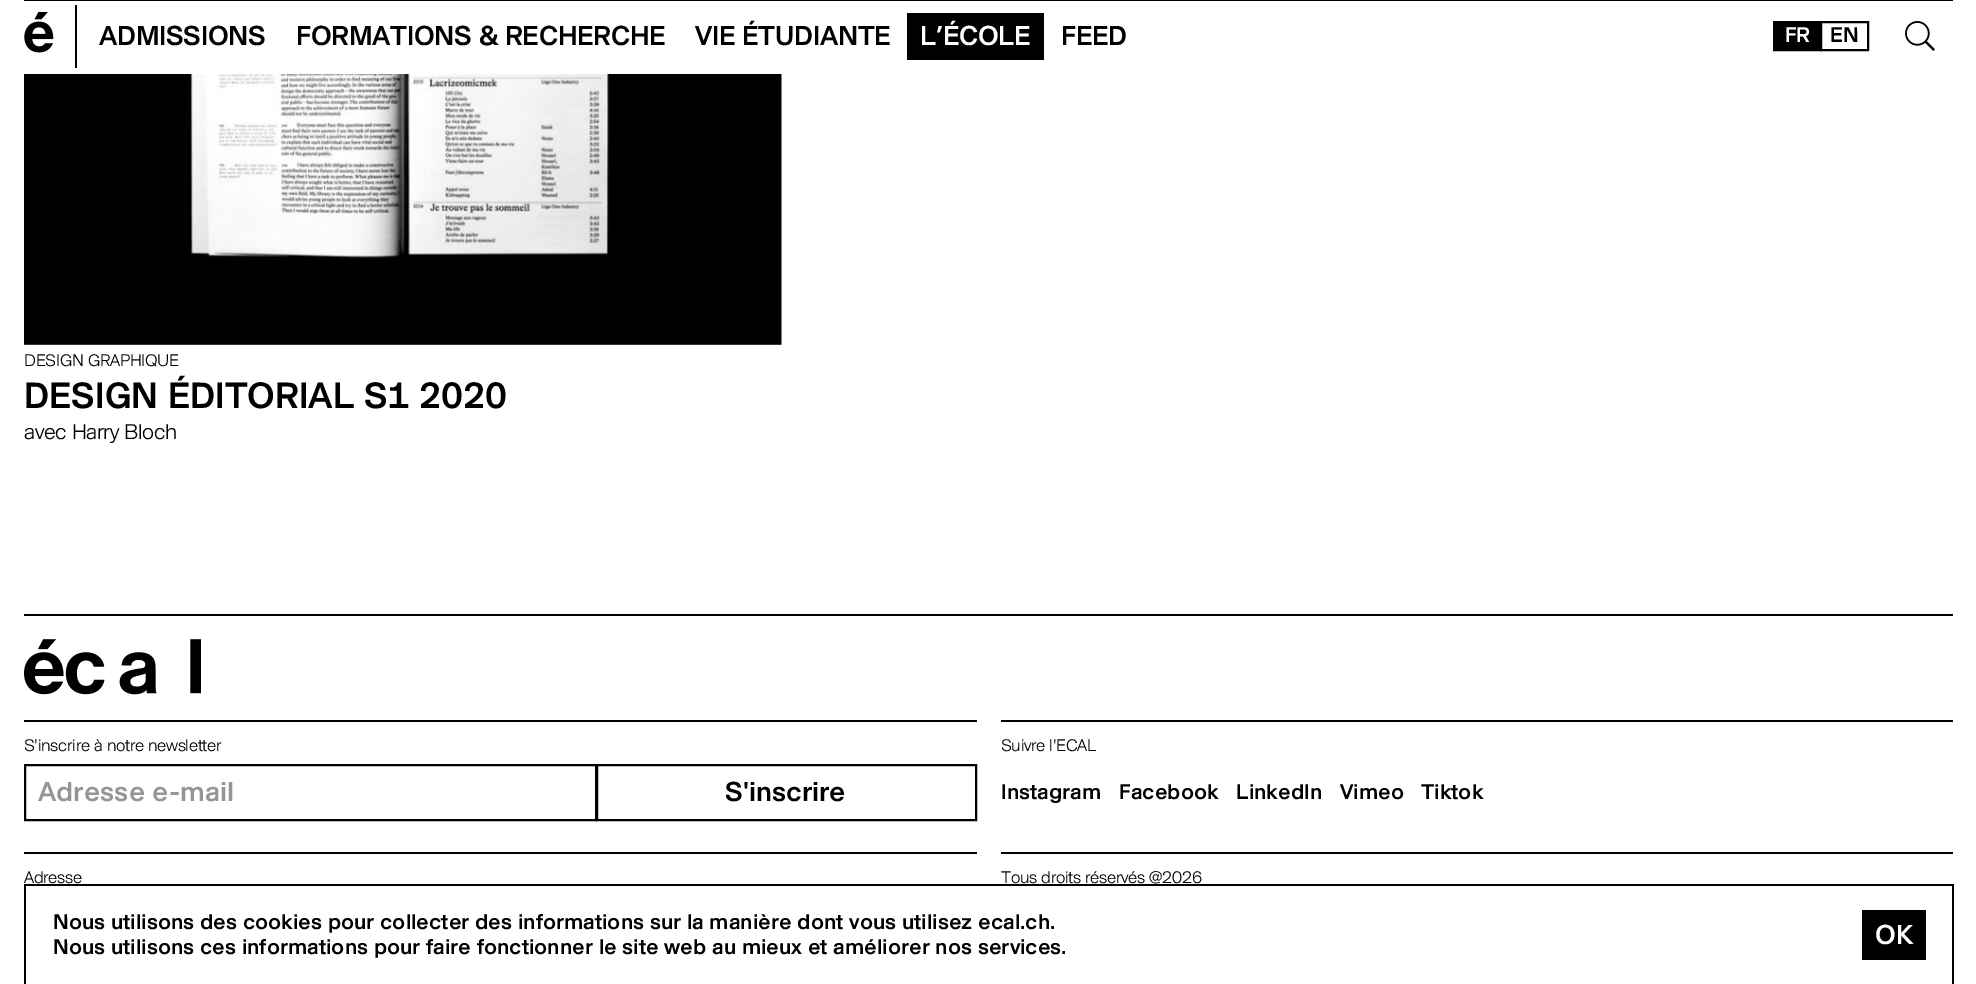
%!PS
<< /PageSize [1976 984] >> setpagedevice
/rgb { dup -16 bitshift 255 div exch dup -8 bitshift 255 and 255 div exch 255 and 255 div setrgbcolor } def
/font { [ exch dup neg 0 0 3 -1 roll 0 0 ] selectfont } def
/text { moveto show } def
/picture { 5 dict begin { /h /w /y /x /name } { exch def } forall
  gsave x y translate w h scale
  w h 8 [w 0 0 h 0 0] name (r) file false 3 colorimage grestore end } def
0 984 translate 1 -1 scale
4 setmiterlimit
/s1 { /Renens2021-Medium 36 font 16#000000 rgb } def
/s2 { /Renens2021-Medium 27 font 16#959595 rgb } def
/s3 { /Renens2021-Medium 27 font 16#000000 rgb } def
/s4 { /Renens2021-Medium 21 font 16#000000 rgb } def
/s5 { /Renens2021-Medium 27 font 16#FFFFFF rgb } def
16#FFFFFF rgb
0 0 1976 984 rectfill
16#000000 rgb
24 0 1929 1 rectfill
(pic1.raw) 24 12 30 41 picture
75 5 2 63 rectfill
/Renens2021-Medium 27 font
99 45 moveto -0.25 0 (ADMISSIONS) ashow
296 45 moveto -0.25 0 (FORMATIONS & RECHERCHE) ashow
695 45 moveto -0.25 0 (VIE ÉTUDIANTE) ashow
907 13 137 47 rectfill
16#FFFFFF rgb
920 45 moveto -0.25 0 (L’ÉCOLE) ashow
16#000000 rgb
1061 45 moveto -0.25 0 (FEED) ashow
1774 22 moveto 1820 22 lineto 1820 50 lineto 1774 50 lineto closepath gsave fill grestore
2 setlinewidth
stroke
/Renens2021-Medium 21 font
16#FFFFFF rgb
1785 42 moveto -0.25 0 (FR) ashow
16#000000 rgb
1821 22 47 28 rectstroke
1830 42 moveto -0.25 0 (EN) ashow
(pic2.raw) 1905 21 30 30 picture
(pic3.raw) 24 74 758 271 picture
/Renens2021-Light 16.5 font
24 366 moveto -0.3 0 (DESIGN GRAPHIQUE) ashow
s1
(DESIGN ÉDITORIAL S1 2020) 24 408 text
/Renens2021-Light 21 font
24 439 moveto -0.4 0 (avec Harry Bloch) ashow
24 614 1929 2 rectfill
(pic4.raw) 24 639 177 56 picture
24 720 953 2 rectfill
/Renens2021-Light 16.5 font
24 751 moveto -0.3 0 (S'inscrire à notre newsletter) ashow
25 765 571 55 rectstroke
s2
(Adresse e-mail) 38 801 text
16#000000 rgb
597 765 379 55 rectstroke
(S'inscrire) 725 801 text
1001 720 952 2 rectfill
/Renens2021-Light 16.5 font
1001 751 moveto -0.3 0 (Suivre l'ECAL) ashow
s4
(Instagram) 1001 799 text
(Facebook) 1119 799 text
(LinkedIn) 1236 799 text
(Vimeo) 1340 799 text
(Tiktok) 1421 799 text
24 852 953 2 rectfill
/Renens2021-Light 16.5 font
24 883 moveto -0.3 0 (Adresse) ashow
1001 852 952 2 rectfill
1001 883 moveto -0.3 0 (Tous droits réservés @2026) ashow
24 884 1929 2 rectfill
1952 884 2 100 rectfill
24 884 2 100 rectfill
s4
(Nous utilisons des cookies pour collecter des informations sur la manière dont vous utilisez ecal.ch.) 53 929 text
1862 910 64 50 rectfill
s5
(OK) 1875 944 text
s4
(Nous utilisons ces informations pour faire fonctionner le site web au mieux et améliorer nos services.) 53 954 text
showpage
